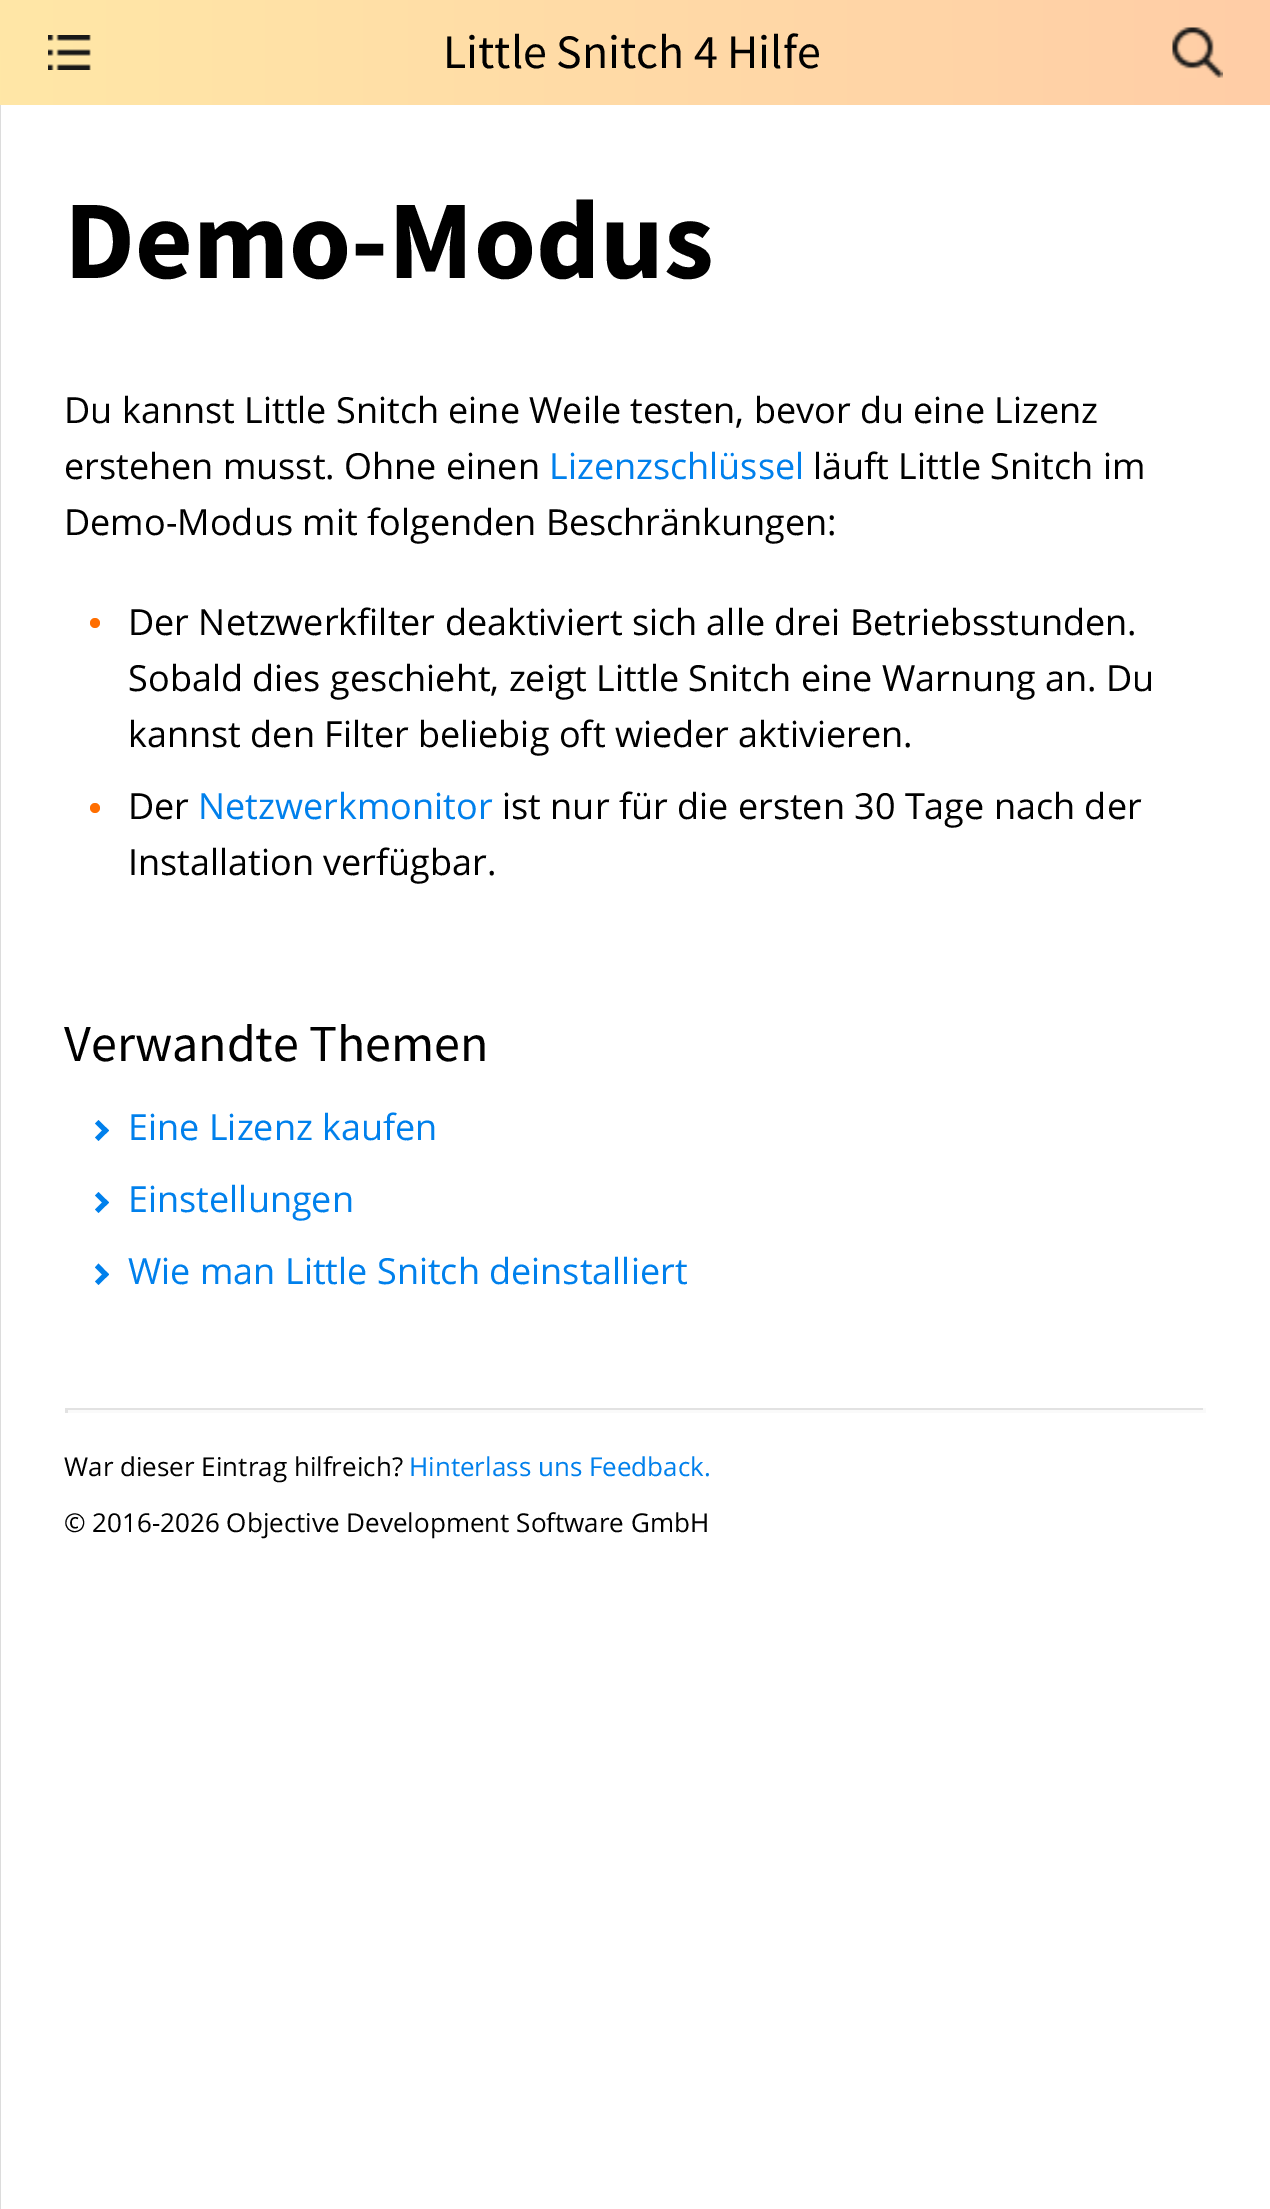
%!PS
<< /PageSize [1270 2209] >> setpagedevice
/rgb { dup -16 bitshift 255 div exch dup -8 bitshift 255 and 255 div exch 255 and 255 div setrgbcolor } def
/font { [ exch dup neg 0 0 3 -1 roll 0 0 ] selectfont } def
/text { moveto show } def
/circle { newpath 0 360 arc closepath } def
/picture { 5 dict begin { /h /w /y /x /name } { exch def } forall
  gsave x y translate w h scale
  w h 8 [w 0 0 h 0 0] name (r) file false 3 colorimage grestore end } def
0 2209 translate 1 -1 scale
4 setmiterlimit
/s1 { /SourceSansPro-Regular 48 font 16#000000 rgb } def
/s2 { /SourceSansPro-Bold 112 font 16#000000 rgb } def
/s3 { /OpenSans-Regular 36 font 16#000000 rgb } def
/s4 { /OpenSans-Regular 36 font 16#0080EC rgb } def
/s5 { /SourceSansPro-Regular 52 font 16#000000 rgb } def
/s6 { /OpenSans-Regular 26 font 16#000000 rgb } def
/s7 { /OpenSans-Regular 26 font 16#0080EC rgb } def
16#FFFFFF rgb
0 0 1270 2209 rectfill
gsave 0 0 moveto 1270 0 lineto 1270 105 lineto 0 105 lineto closepath clip newpath
<< /ShadingType 2 /ColorSpace /DeviceRGB /Coords [0 53 1270 52] /Extend [true true] /Function << /FunctionType 2 /Domain [0 1] /C0 [1 0.906 0.651] /C1 [1 0.804 0.651] /N 1 >> >> shfill grestore
(pic1.raw) 48 35 43 35 picture
s1
(Little Snitch 4 Hilfe) 443 68 text
(pic2.raw) 1172 27 51 51 picture
16#DCDCDC rgb
0 105 1 2104 rectfill
s2
(Demo-Modus) 64 278 text
s3
(Du kannst Little Snitch eine Weile testen, bevor du eine Lizenz) 64 423 text
(erstehen musst. Ohne einen) 64 479 text
s4
(Lizenzschlüssel) 549 479 text
s3
(läuft Little Snitch im) 813 479 text
(Demo-Modus mit folgenden Beschränkungen:) 64 535 text
16#FF6E00 rgb
95 623 5 circle fill
s3
(Der Netzwerkfilter deaktiviert sich alle drei Betriebsstunden.) 128 635 text
(Sobald dies geschieht, zeigt Little Snitch eine Warnung an. Du) 128 691 text
(kannst den Filter beliebig oft wieder aktivieren.) 128 747 text
16#FF6E00 rgb
95 808 5 circle fill
s3
(Der) 128 819 text
s4
(Netzwerkmonitor) 198 819 text
s3
(ist nur für die ersten 30 Tage nach der) 502 819 text
(Installation verfügbar.) 128 875 text
s5
(Verwandte Themen) 64 1061 text
16#0080EC rgb
95 1123.5 moveto 98.5 1120 lineto 109 1130.5 lineto 105.5 1134 lineto closepath fill
95 1137.5 moveto 105.5 1127 lineto 109 1130.5 lineto 98.5 1141 lineto closepath fill
s4
(Eine Lizenz kaufen) 128 1140 text
95 1195.5 moveto 98.5 1192 lineto 109 1202.5 lineto 105.5 1206 lineto closepath fill
95 1209.5 moveto 105.5 1199 lineto 109 1202.5 lineto 98.5 1213 lineto closepath fill
(Einstellungen) 128 1212 text
95 1267.5 moveto 98.5 1263.5 lineto 109 1274.5 lineto 105.5 1278 lineto closepath fill
95 1281.5 moveto 105.5 1271 lineto 109 1274.5 lineto 98.5 1285 lineto closepath fill
(Wie man Little Snitch deinstalliert) 128 1284 text
16#E2E2E2 rgb
65 1408 1140 2 rectfill
16#FAFAFA rgb
1203 1408 3 5 rectfill
65 1410 1140 3 rectfill
16#E2E2E2 rgb
65 1408 3 5 rectfill
s6
(War dieser Eintrag hilfreich?) 64 1476 text
s7
(Hinterlass uns Feedback.) 409 1476 text
s6
(© 2016-2026 Objective Development Software GmbH) 64 1532 text
showpage
